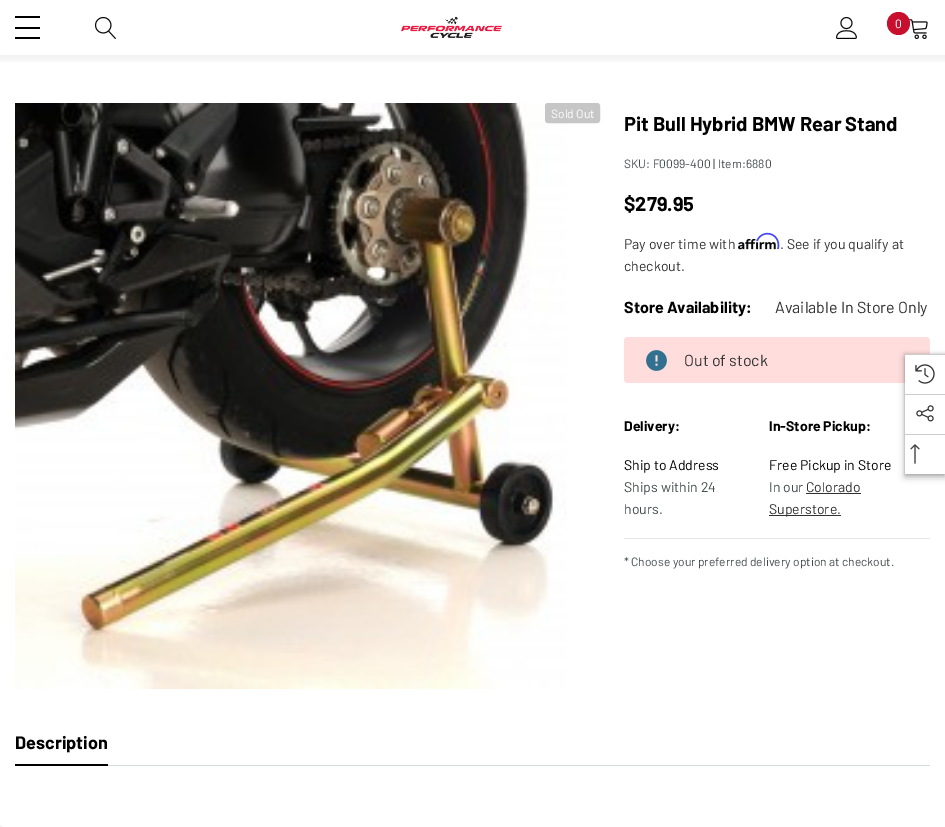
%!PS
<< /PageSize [945 827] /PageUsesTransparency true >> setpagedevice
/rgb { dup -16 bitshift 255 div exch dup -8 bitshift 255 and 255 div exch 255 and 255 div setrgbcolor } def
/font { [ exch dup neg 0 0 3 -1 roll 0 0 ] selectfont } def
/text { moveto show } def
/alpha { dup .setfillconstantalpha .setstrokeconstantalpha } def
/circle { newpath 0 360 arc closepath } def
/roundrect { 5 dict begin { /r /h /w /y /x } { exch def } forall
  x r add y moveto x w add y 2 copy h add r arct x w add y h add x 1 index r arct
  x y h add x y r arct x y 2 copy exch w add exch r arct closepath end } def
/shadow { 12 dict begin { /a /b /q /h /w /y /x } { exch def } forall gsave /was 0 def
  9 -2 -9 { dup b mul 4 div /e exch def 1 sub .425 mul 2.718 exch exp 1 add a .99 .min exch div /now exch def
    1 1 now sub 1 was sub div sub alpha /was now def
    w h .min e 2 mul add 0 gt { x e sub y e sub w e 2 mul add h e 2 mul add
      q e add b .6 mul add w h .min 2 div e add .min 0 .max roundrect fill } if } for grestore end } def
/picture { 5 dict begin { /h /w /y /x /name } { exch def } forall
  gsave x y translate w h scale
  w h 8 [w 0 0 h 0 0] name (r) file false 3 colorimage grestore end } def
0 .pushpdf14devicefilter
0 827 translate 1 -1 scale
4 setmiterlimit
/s1 { /Barlow-Regular 12 font 16#FFFFFF rgb } def
/s2 { /Barlow-Bold 20 font 16#000000 rgb } def
/s3 { /Barlow-Regular 12 font 16#454C4F rgb } def
/s4 { /Barlow-Regular 14 font 16#323232 rgb } def
/s5 { /Barlow-Bold 16 font 16#000000 rgb } def
/s6 { /Barlow-Regular 16 font 16#323232 rgb } def
/s7 { /Barlow-Bold 14 font 16#000000 rgb } def
/s8 { /Barlow-Regular 14 font 16#000000 rgb } def
/s9 { /Barlow-Regular 14 font 16#454C4F rgb } def
/s10 { /Barlow-Bold 18 font 16#000000 rgb } def
16#FFFFFF rgb
0 0 945 827 rectfill
gsave
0 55 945 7 rectclip
16#000000 rgb
-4 -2 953 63 0 4 0.05 shadow
grestore
16#000000 rgb
15 27 25 2 rectfill
15 16 25 2 rectfill
15 37 25 2 rectfill
(pic1.raw) 95 17 21 22 picture
(pic2.raw) 401 16 101 22 picture
(pic3.raw) 836 17 21 22 picture
(pic4.raw) 909 19 19 20 picture
16#C8102E rgb
898.5 23.5 11.5 circle fill
s1
(0) 895 28 text
(pic5.raw) 15 103 552 586 picture
16#C6C6C6 rgb
545.5 103.5 54 19 2.5 roundrect gsave fill grestore
stroke
s1
(Sold Out) 551 118 text
s2
(Pit Bull Hybrid BMW Rear Stand) 624 131 text
s3
(SKU: F0099-400 |) 624 168 text
(Item:6880) 718 168 text
s2
($279.95) 624 211 text
s4
(Pay over time with) 624 249 text
(pic7.raw) 738 238 38 12 picture
(pic6.raw) 756 232 24 18 picture
(. See if you qualify at) 780 249 text
(checkout.) 624 271 text
s5
(Store Availability:) 624 313 text
s6
(Available In Store Only) 775 313 text
16#FFDDDD rgb
624 337 306 46 4 roundrect fill
(pic8.raw) 646 350 21 21 picture
s6
(Out of stock) 684 366 text
s7
(Delivery:) 624 431 text
s8
(Ship to Address) 624 470 text
s9
(Ships within 24) 624 492 text
(hours.) 624 514 text
s7
(In-Store Pickup:) 769 431 text
s8
(Free Pickup in Store) 769 470 text
s9
(In our) 769 492 text
s4
(Colorado) 806 492 text
806 493 55 1 rectfill
769 515 72 1 rectfill
(Superstore.) 769 514 text
16#E6E6E6 rgb
624 538 306 1 rectfill
s3
(* Choose your preferred delivery option at checkout.) 624 566 text
16#D9DCDE rgb
108 765 822 1 rectfill
s10
(Description) 15 749 text
15 764 93 2 rectfill
905 357 40 120 0 3.5 0.3 shadow
904 353 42 122 0 1 0.1 shadow
16#FFFFFF rgb
905 355 40 119 rectfill
16#CCCCCC rgb
905 354 40 1 rectfill
(pic9.raw) 915 364 20 20 picture
905 394 40 1 rectfill
(pic10.raw) 916 405 18 17 picture
905 434 40 1 rectfill
(pic11.raw) 910 444 10 20 picture
16#F5F5F5 rgb
0 825 2 2 rectfill
.poppdf14devicefilter showpage
